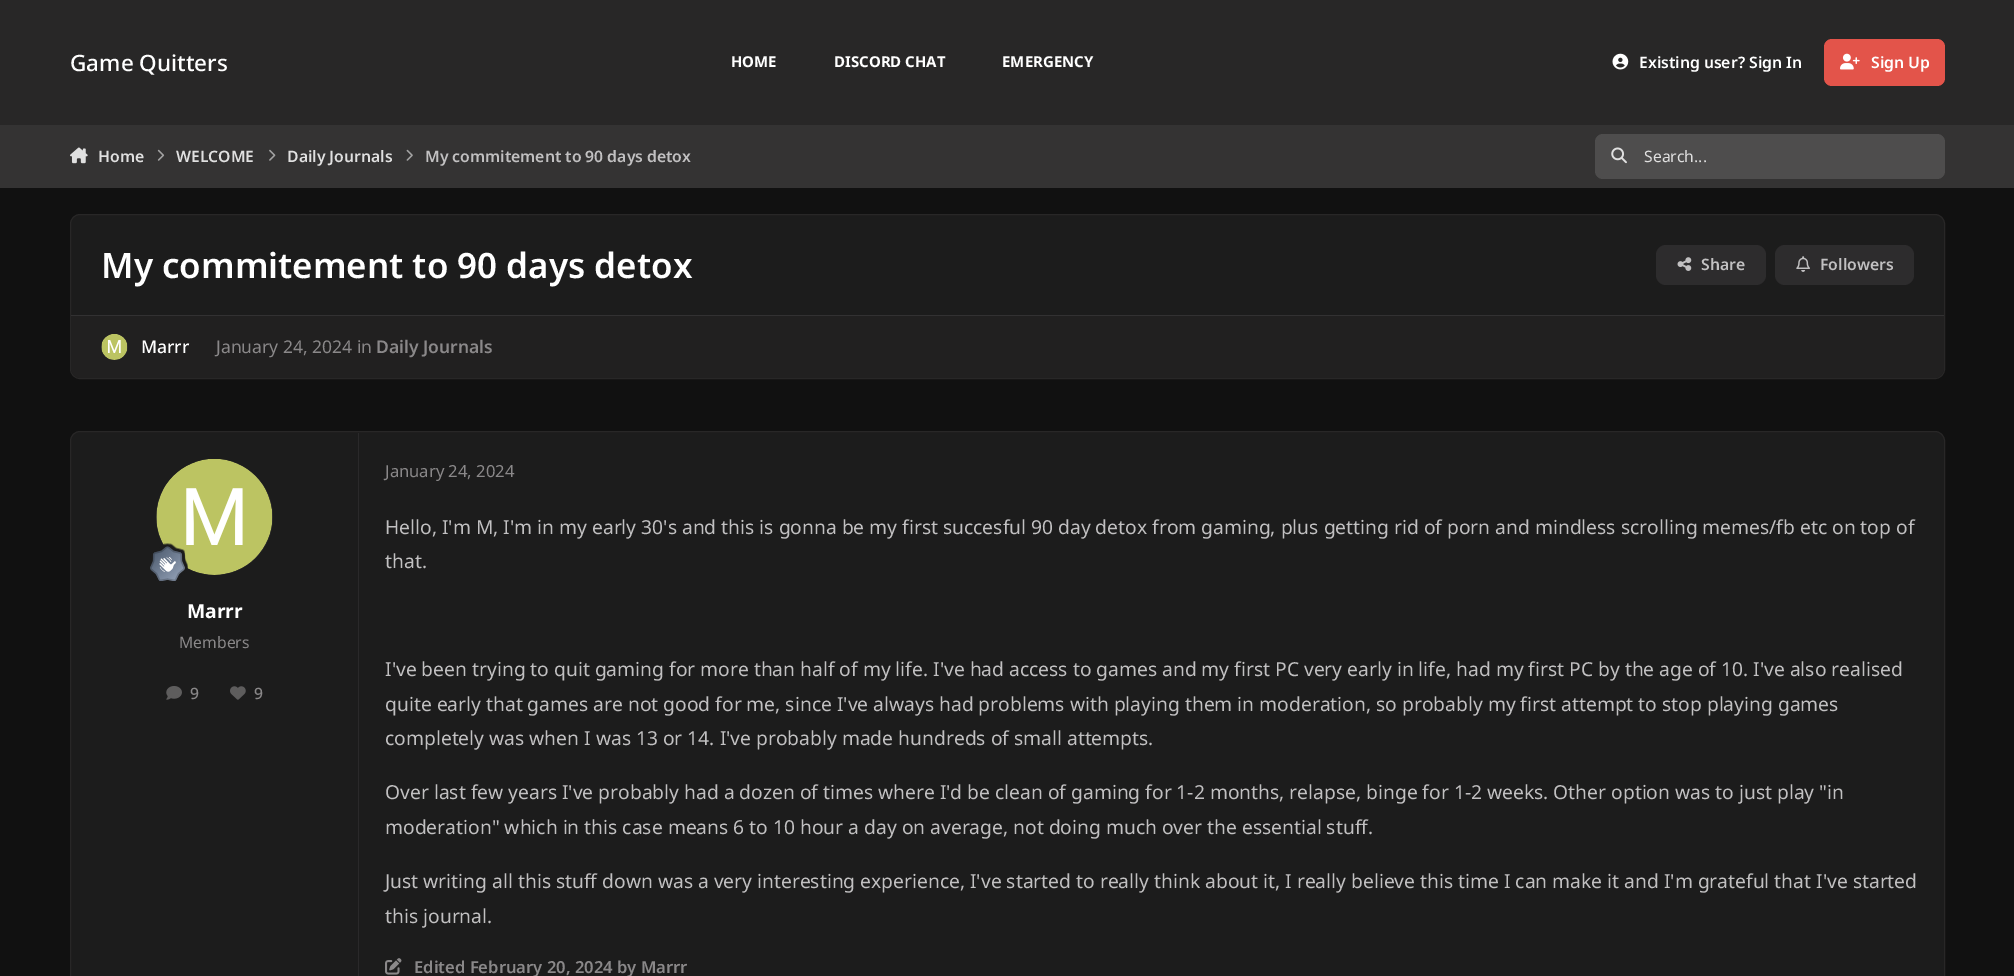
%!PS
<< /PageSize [2014 976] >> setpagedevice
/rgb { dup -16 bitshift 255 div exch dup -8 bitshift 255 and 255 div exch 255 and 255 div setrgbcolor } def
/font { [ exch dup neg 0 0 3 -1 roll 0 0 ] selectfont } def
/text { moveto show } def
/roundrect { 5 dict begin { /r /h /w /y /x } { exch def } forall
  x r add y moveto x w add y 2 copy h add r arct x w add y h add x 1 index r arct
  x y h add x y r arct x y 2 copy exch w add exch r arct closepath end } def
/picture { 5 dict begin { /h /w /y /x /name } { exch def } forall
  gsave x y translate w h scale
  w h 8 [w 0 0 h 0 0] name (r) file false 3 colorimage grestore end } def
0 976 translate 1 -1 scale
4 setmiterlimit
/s1 { /NotoSans-Medium 22.5 font 16#FFFFFF rgb } def
/s2 { /NotoSans-Bold 15 font 16#FFFFFF rgb } def
/s3 { /NotoSans-SemiBold 15.75 font 16#FFFFFF rgb } def
/s4 { /NotoSans-SemiBold 15.75 font 16#E0E0E0 rgb } def
/s5 { /NotoSans-SemiBold 15.75 font 16#C1C0C1 rgb } def
/s6 { /NotoSans-Regular 15.75 font 16#E0E0E0 rgb } def
/s7 { /NotoSans-SemiBold 35 font 16#FFFFFF rgb } def
/s8 { /NotoSans-Medium 17.5 font 16#FFFFFF rgb } def
/s9 { /NotoSans-Regular 17.5 font 16#8A8889 rgb } def
/s10 { /NotoSans-SemiBold 17.5 font 16#8A8889 rgb } def
/s11 { /NotoSans-Bold 19.25 font 16#FFFFFF rgb } def
/s12 { /NotoSans-Regular 15.75 font 16#8A8889 rgb } def
/s13 { /NotoSans-Medium 15.75 font 16#8A8889 rgb } def
/s14 { /NotoSans-Regular 16.6 font 16#8A8889 rgb } def
/s15 { /NotoSans-Regular 19.25 font 16#C1C0C1 rgb } def
/s16 { /NotoSans-SemiBold 16.6 font 16#8A8889 rgb } def
16#111111 rgb
0 0 2014 976 rectfill
16#282727 rgb
0 0 2014 125 rectfill
s1
(Game Quitters) 70 71 text
s2
(HOME) 731 67 text
(DISCORD CHAT) 834 67 text
(EMERGENCY) 1002 67 text
(pic1.raw) 1612 53 17 17 picture
s3
(Existing user? Sign In) 1639 68 text
16#E3544A rgb
1824 39 121 47 8 roundrect fill
(pic2.raw) 1840 53 20 17 picture
s3
(Sign Up) 1871 68 text
16#343333 rgb
0 125 2014 63 rectfill
(pic3.raw) 70 147 18 17 picture
s4
(Home) 98 162 text
(pic4.raw) 157 149 8 12 picture
(WELCOME) 176 162 text
(pic5.raw) 269 149 7 12 picture
(Daily Journals) 287 162 text
(pic6.raw) 406 149 7 12 picture
s5
(My commitement to 90 days detox) 425 162 text
16#4E4D4D rgb
1595 134 350 45 8 roundrect fill
(pic7.raw) 1611 147 16 17 picture
s6
(Search...) 1644 162 text
16#1C1C1C rgb
70.5 214.5 1874 164 9.5 roundrect gsave fill grestore
16#282727 rgb
stroke
s7
(My commitement to 90 days detox) 101 278 text
16#2D2C2D rgb
1656 245 110 40 10 roundrect fill
(pic8.raw) 1677 257 15 14 picture
s5
(Share) 1701 270 text
16#2D2C2D rgb
1775 245 139 40 10 roundrect fill
(pic9.raw) 1796 256 14 16 picture
s5
(Followers) 1820 270 text
16#212020 rgb
71 315 moveto 1944 315 lineto 1944 368 lineto 1944 373.5 1939.5 378 1934 378 curveto 81 378 lineto 75.5 378 71 373.5 71 368 curveto closepath fill
16#323132 rgb
71 315 1873 1 rectfill
16#2A292A rgb
101 334 27 26 13 roundrect fill
(pic10.raw) 101 334 27 26 picture
s8
(Marrr) 141 353 text
s9
(January 24, 2024 in) 216 353 text
s10
(Daily Journals) 376 353 text
16#1C1C1C rgb
70.5 431.5 1874 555 9.5 roundrect gsave fill grestore
16#282727 rgb
stroke
16#2A292A rgb
358 433 1 543 rectfill
156 459 117 116 58 roundrect fill
(pic11.raw) 156 459 117 116 picture
(pic12.raw) 150 543 38 38 picture
s11
(Marrr) 187 618 text
s12
(Members) 179 648 text
(pic13.raw) 166 686 16 14 picture
s13
(9) 190 699 text
(pic14.raw) 230 686 16 14 picture
(9) 254 699 text
s14
(January 24, 2024) 385 477 text
s15
(Hello, I'm M, I'm in my early 30's and this is gonna be my first succesful 90 day detox from gaming, plus getting rid of porn and mindless scrolling memes/fb etc on top of) 385 534 text
(that.) 385 568 text
(I've been trying to quit gaming for more than half of my life. I've had access to games and my first PC very early in life, had my first PC by the age of 10. I've also realised) 385 676 text
(quite early that games are not good for me, since I've always had problems with playing them in moderation, so probably my first attempt to stop playing games) 385 711 text
(completely was when I was 13 or 14. I've probably made hundreds of small attempts.) 385 745 text
(Over last few years I've probably had a dozen of times where I'd be clean of gaming for 1-2 months, relapse, binge for 1-2 weeks. Other option was to just play "in) 385 799 text
(moderation" which in this case means 6 to 10 hour a day on average, not doing much over the essential stuff.) 385 834 text
(Just writing all this stuff down was a very interesting experience, I've started to really think about it, I really believe this time I can make it and I'm grateful that I've started) 385 888 text
(this journal.) 385 923 text
(pic15.raw) 385 958 17 17 picture
s16
(Edited February 20, 2024 by Marrr) 414 973 text
showpage
